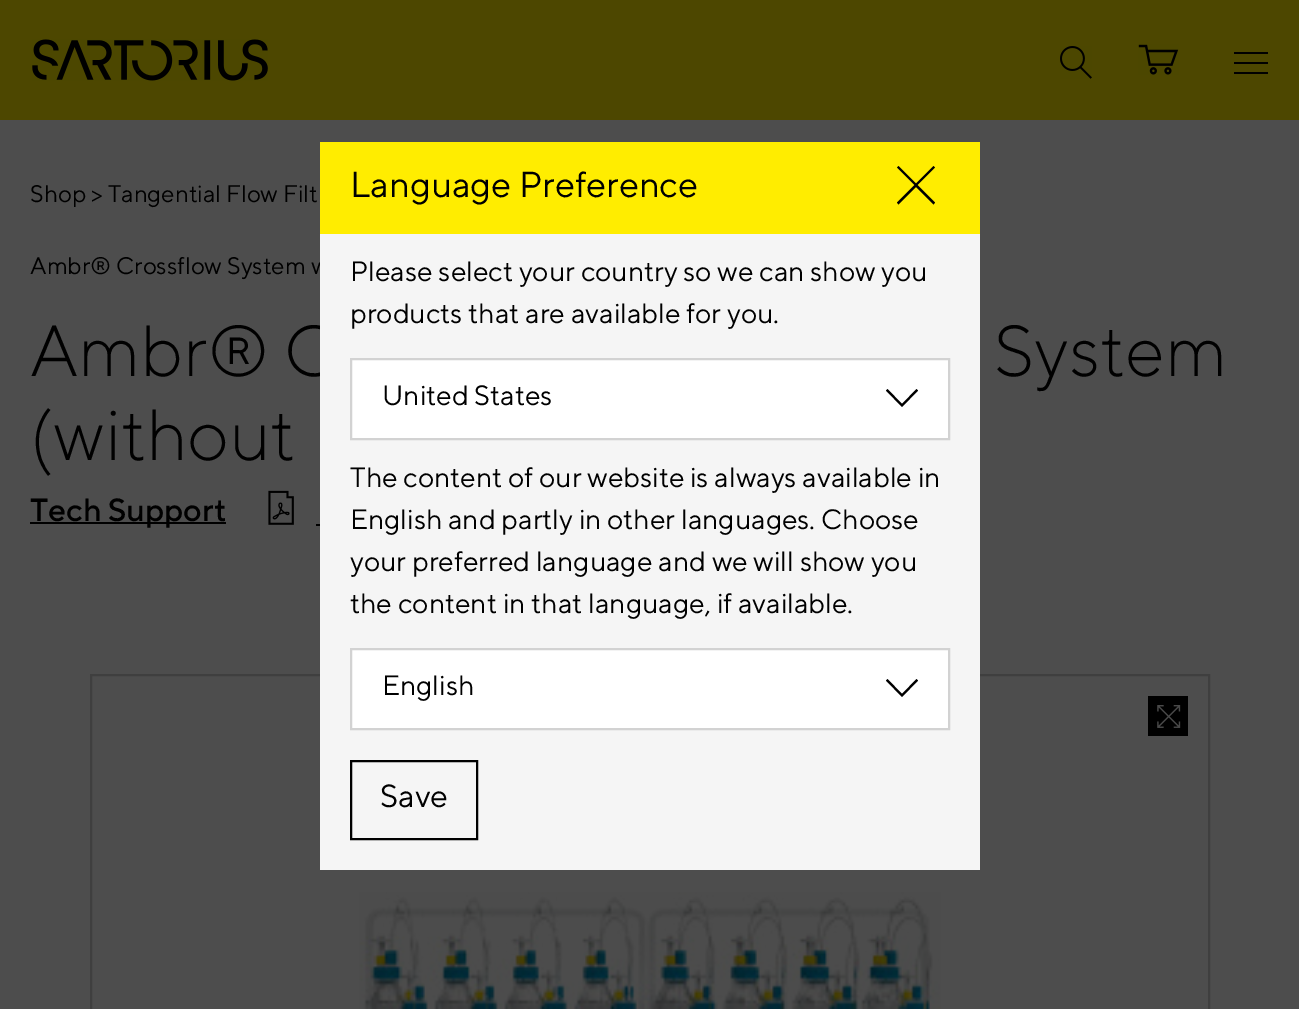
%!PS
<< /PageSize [1299 1009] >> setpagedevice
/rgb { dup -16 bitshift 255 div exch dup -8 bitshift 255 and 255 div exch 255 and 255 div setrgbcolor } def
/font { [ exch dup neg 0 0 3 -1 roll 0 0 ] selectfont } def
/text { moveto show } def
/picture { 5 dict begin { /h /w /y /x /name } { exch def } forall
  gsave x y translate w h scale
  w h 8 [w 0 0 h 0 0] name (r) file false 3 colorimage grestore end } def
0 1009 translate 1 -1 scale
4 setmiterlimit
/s1 { /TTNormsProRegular-Regular 24 font 16#000000 rgb } def
/s2 { /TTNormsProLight-Regular 72 font 16#000000 rgb } def
/s3 { /TTNormsProRegular-Regular 36 font 16#000000 rgb } def
/s4 { /TTNormsProRegular-Regular 28 font 16#000000 rgb } def
/s5 { /TTNormsProRegular-Regular 32 font 16#000000 rgb } def
/s6 { /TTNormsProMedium-Regular 32 font 16#000000 rgb } def
16#4D4D4D rgb
0 0 1299 1009 rectfill
16#4D4700 rgb
0 0 1299 120 rectfill
(pic1.raw) 32 39 236 42 picture
(pic2.raw) 1060 46 32 33 picture
(pic3.raw) 1138 44 41 31 picture
16#000000 rgb
1234 52 34 2 rectfill
1234 62 34 2 rectfill
1234 72 34 2 rectfill
s1
(Ambr® Crossflow System w) 30 274 text
s2
(Ambr® C) 30 376 text
16#3F3F3F rgb
2 setlinewidth
91 675 1118 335 rectstroke
16#F5F5F5 rgb
320 234 660 636 rectfill
16#FFED00 rgb
320 142 660 92 rectfill
s3
(Language Preference) 350 197 text
935 167.5 moveto 933.5 166 lineto 916 183.5 lineto 898.5 166 lineto 897 167.5 lineto 914.5 185 lineto 897 202.5 lineto 898.5 204.5 lineto 916 187 lineto 933.5 204.5 lineto 935 202.5 lineto 917.5 185 lineto closepath fill
s4
(Please select your country so we can show you) 350 281 text
(products that are available for you.) 350 323 text
16#FFFFFF rgb
351 359 moveto 949 359 lineto 949 439 lineto 351 439 lineto closepath gsave fill grestore
16#D2D2D2 rgb
stroke
s4
(United States) 382 405 text
902 407 moveto 886 390.5 lineto 887.5 389 lineto 902 404 lineto 916.5 389 lineto 918 390.5 lineto closepath fill
(The content of our website is always available in) 350 487 text
(English and partly in other languages. Choose) 350 529 text
(your preferred language and we will show you) 350 571 text
(the content in that language, if available.) 350 613 text
16#FFFFFF rgb
351 649 moveto 949 649 lineto 949 729 lineto 351 729 lineto closepath gsave fill grestore
16#D2D2D2 rgb
stroke
s4
(English) 382 695 text
902 697 moveto 886 680.5 lineto 887.5 679 lineto 902 694 lineto 916.5 679 lineto 918 680.5 lineto closepath fill
351 761 126 78 rectstroke
s5
(Save) 380 807 text
s1
(Shop > Tangential Flow Filt) 30 202 text
s2
(System) 994 376 text
(\(without) 30 460 text
30 522 196 2 rectfill
s6
(Tech Support) 30 521 text
(pic4.raw) 268 490 26 35 picture
316 524 4 2 rectfill
1148 696 40 40 rectfill
(pic5.raw) 1157 705 24 23 picture
(pic6.raw) 359 892 582 117 picture
showpage
